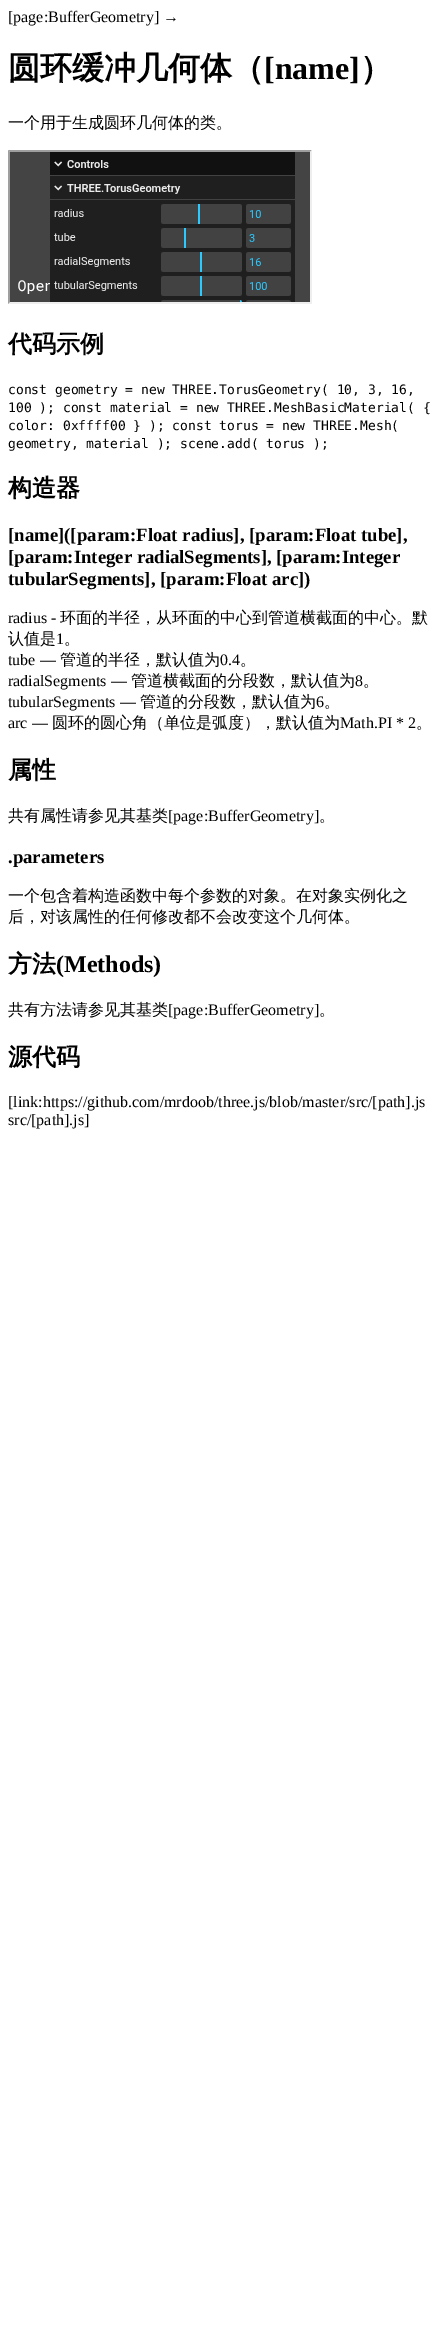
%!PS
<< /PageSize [446 2349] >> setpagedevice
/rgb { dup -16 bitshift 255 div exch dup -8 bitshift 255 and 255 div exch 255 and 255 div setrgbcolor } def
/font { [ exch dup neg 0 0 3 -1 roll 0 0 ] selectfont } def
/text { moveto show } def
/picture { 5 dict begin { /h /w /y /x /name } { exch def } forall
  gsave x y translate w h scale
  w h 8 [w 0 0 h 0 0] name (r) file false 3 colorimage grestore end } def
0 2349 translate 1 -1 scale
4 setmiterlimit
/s1 { /LiberationSerif-Regular 16 font 16#000000 rgb } def
/s2 { /WenQuanYiZenHei-Bold 32 font 16#000000 rgb } def
/s3 { /LiberationSerif-Bold 32 font 16#000000 rgb } def
/s4 { /WenQuanYiZenHei-Medium 16 font 16#000000 rgb } def
/s5 { /WenQuanYiZenHei-Bold 24 font 16#000000 rgb } def
/s6 { /DejaVuSansMono-Regular 13 font 16#000000 rgb } def
/s7 { /LiberationSerif-Bold 18.75 font 16#000000 rgb } def
/s8 { /LiberationSerif-Bold 24 font 16#000000 rgb } def
16#FFFFFF rgb
0 0 446 2349 rectfill
s1
([page:BufferGeometry] →) 8 22 text
s2
(圆环缓冲几何体（) 8 79 text
s3
([name]) 264 79 text
s2
(）) 360 79 text
s4
(一个用于生成圆环几何体的类。) 8 128 text
16#9F9F9F rgb
8 150 moveto 312 150 lineto 310 152 lineto 10 152 lineto closepath fill
16#EEEEEE rgb
312 150 moveto 312 304 lineto 310 302 lineto 310 152 lineto closepath fill
312 304 moveto 8 304 lineto 10 302 lineto 310 302 lineto closepath fill
16#9F9F9F rgb
8 304 moveto 8 150 lineto 10 152 lineto 10 302 lineto closepath fill
(pic1.raw) 10 152 300 150 picture
s5
(代码示例) 8 352 text
s6
(const geometry = new THREE.TorusGeometry\( 10, 3, 16,) 8 394 text
(100 \); const material = new THREE.MeshBasicMaterial\( {) 8 412 text
(color: 0xffff00 } \); const torus = new THREE.Mesh\() 8 430 text
(geometry, material \); scene.add\( torus \);) 8 448 text
s5
(构造器) 8 496 text
s7
([name]\([param:Float radius], [param:Float tube],) 8 541 text
([param:Integer radialSegments], [param:Integer) 8 563 text
(tubularSegments], [param:Float arc]\)) 8 585 text
s1
(radius -) 8 623 text
s4
(环面的半径，从环面的中心到管道横截面的中心。默) 60 623 text
(认值是) 8 644 text
s1
(1) 56 644 text
s4
(。) 64 644 text
s1
(tube —) 8 665 text
s4
(管道的半径，默认值为) 60 665 text
s1
(0.4) 220 665 text
s4
(。) 240 665 text
s1
(radialSegments —) 8 686 text
s4
(管道横截面的分段数，默认值为) 131 686 text
s1
(8) 355 686 text
s4
(。) 363 686 text
s1
(tubularSegments —) 8 707 text
s4
(管道的分段数，默认值为) 140 707 text
s1
(6) 316 707 text
s4
(。) 324 707 text
s1
(arc —) 8 728 text
s4
(圆环的圆心角（单位是弧度），默认值为) 52 728 text
s1
(Math.PI * 2) 340 728 text
s4
(。) 416 728 text
s5
(属性) 8 778 text
s4
(共有属性请参见其基类) 8 821 text
s1
([page:BufferGeometry]) 168 821 text
s4
(。) 319 821 text
s7
(.parameters) 8 863 text
s4
(一个包含着构造函数中每个参数的对象。在对象实例化之) 8 901 text
(后，对该属性的任何修改都不会改变这个几何体。) 8 922 text
s5
(方法) 8 972 text
s8
(\(Methods\)) 56 972 text
s4
(共有方法请参见其基类) 8 1015 text
s1
([page:BufferGeometry]) 168 1015 text
s4
(。) 319 1015 text
s5
(源代码) 8 1065 text
s1
([link:https://github.com/mrdoob/three.js/blob/master/src/[path].js) 8 1107 text
(src/[path].js]) 8 1125 text
showpage
